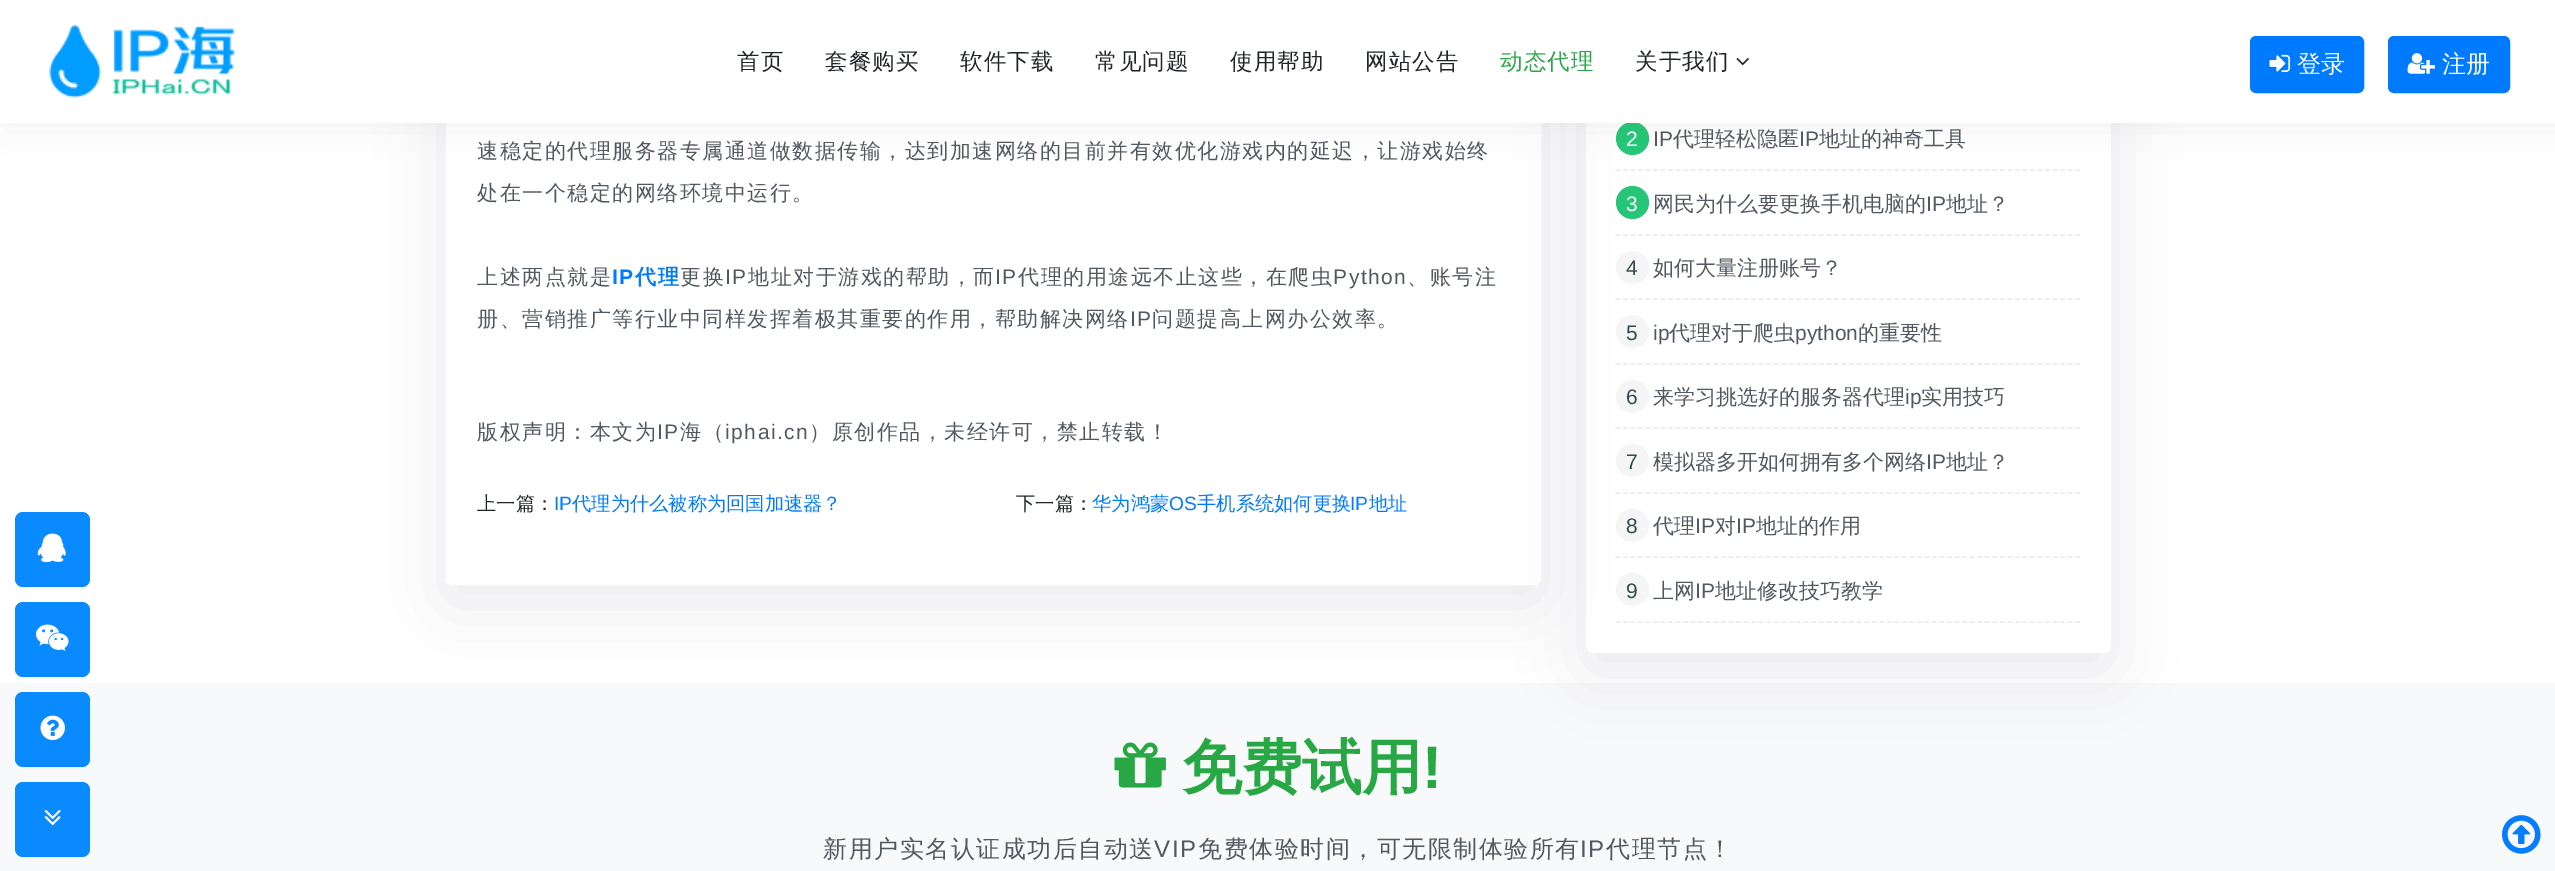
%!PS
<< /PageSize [2555 871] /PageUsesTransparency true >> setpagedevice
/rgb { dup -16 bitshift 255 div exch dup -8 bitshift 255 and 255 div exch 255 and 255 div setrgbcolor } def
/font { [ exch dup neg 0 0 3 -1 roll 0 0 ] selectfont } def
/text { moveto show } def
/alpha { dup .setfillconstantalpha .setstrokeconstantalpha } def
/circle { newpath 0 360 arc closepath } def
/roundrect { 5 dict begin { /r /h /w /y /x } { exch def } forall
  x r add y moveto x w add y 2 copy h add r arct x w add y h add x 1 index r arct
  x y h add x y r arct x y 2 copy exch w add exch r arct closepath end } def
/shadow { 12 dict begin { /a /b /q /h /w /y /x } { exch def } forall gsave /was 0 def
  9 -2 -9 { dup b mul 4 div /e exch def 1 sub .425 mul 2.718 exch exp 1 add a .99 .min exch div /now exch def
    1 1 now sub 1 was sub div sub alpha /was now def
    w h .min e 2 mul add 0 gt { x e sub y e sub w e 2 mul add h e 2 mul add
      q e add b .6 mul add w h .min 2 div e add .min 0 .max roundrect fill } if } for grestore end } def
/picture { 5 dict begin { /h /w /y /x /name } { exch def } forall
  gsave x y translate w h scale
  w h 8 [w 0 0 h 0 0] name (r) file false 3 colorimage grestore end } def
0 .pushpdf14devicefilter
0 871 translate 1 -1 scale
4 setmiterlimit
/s1 { /WenQuanYiZenHei-Medium 24 font 16#FFFFFF rgb } def
/s2 { /WenQuanYiZenHei-Medium 19.25 font 16#212529 rgb } def
/s3 { /LiberationSans-Regular 19.25 font 16#007BFF rgb } def
/s4 { /WenQuanYiZenHei-Medium 19.25 font 16#007BFF rgb } def
/s5 { /LiberationSans-Regular 21 font 16#FFFFFF rgb } def
/s6 { /LiberationSans-Regular 21 font 16#51585F rgb } def
/s7 { /WenQuanYiZenHei-Medium 21 font 16#51585F rgb } def
/s8 { /LiberationSans-Regular 21 font 16#2F4F4F rgb } def
/s9 { /WenQuanYiZenHei-Bold 60 font 16#28A745 rgb } def
/s10 { /LiberationSans-Bold 60 font 16#28A745 rgb } def
16#FFFFFF rgb
0 0 2555 871 rectfill
16#F8F9FA rgb
0 683 2555 188 rectfill
gsave
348 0 moveto 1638 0 lineto 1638 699 lineto 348 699 lineto closepath 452 -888 moveto 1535 -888 lineto 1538.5 -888 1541 -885.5 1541 -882 curveto 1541 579 lineto 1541 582.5 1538.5 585 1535 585 curveto 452 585 lineto 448.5 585 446 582.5 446 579 curveto 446 -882 lineto 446 -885.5 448.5 -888 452 -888 curveto closepath eoclip newpath
16#3A3452 rgb
444 -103 1098 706 8 31.5 0.1 shadow
grestore
16#FFFFFF rgb
2 setlinewidth
447 -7 1093 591 5 roundrect stroke
gsave
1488 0 moveto 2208 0 lineto 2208 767 lineto 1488 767 lineto closepath 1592 -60 moveto 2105 -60 lineto 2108.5 -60 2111 -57.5 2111 -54 curveto 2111 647 lineto 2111 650.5 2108.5 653 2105 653 curveto 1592 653 lineto 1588.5 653 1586 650.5 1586 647 curveto 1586 -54 lineto 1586 -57.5 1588.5 -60 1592 -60 curveto closepath eoclip newpath
16#3A3452 rgb
1584 -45 528 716 8 31.5 0.1 shadow
grestore
16#E9EAEC rgb
1.5 setlinewidth
[4.5 3.04] 0 setdash
1615.5 170 moveto 2080.5 170 lineto stroke
16#26C577 rgb
1632.5 138.5 16.5 circle fill
16#575757 rgb
8 0 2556 123 0 16 0.1 shadow
16#FFFFFF rgb
0 0 2555 123 rectfill
(pic1.raw) 49 25 186 73 picture
/WenQuanYiZenHei-Medium 22.5 font
16#212529 rgb
737 69 moveto 1 0 (首页) ashow
825 69 moveto 1 0 (套餐购买) ashow
960 69 moveto 1 0 (软件下载) ashow
1095 69 moveto 1 0 (常见问题) ashow
1230 69 moveto 1 0 (使用帮助) ashow
1365 69 moveto 1 0 (网站公告) ashow
16#28A745 rgb
1500 69 moveto 1 0 (动态代理) ashow
16#212529 rgb
1635 69 moveto 1 0 (关于我们) ashow
(pic2.raw) 1736 58 13 8 picture
16#007BFF rgb
2251 37 112 55 5 roundrect gsave fill grestore
2 setlinewidth
[] 0 setdash
stroke
(pic3.raw) 2269 54 22 18 picture
s1
(登录) 2297 72 text
16#007BFF rgb
2389 37 120 55 5 roundrect gsave fill grestore
stroke
(pic4.raw) 2407 53 28 21 picture
s1
(注册) 2442 72 text
/WenQuanYiZenHei-Medium 21 font
16#51585F rgb
477 158 moveto 1.5 0 (速稳定的代理服务器专属通道做数据传输，达到加速网络的目前并有效优化游戏内的延迟，让游戏始终) ashow
477 200 moveto 1.5 0 (处在一个稳定的网络环境中运行。) ashow
477 284 moveto 1.5 0 (上述两点就是) ashow
/LiberationSans-Bold 21 font
16#007BFF rgb
612 284 moveto 1.5 0 (IP) ashow
/WenQuanYiZenHei-Bold 21 font
635 284 moveto 1.5 0 (代理) ashow
/WenQuanYiZenHei-Medium 21 font
16#51585F rgb
680 284 moveto 1.5 0 (更换) ashow
/LiberationSans-Regular 21 font
725 284 moveto 1.5 0 (IP) ashow
/WenQuanYiZenHei-Medium 21 font
748 284 moveto 1.5 0 (地址对于游戏的帮助，而) ashow
/LiberationSans-Regular 21 font
995 284 moveto 1.5 0 (IP) ashow
/WenQuanYiZenHei-Medium 21 font
1018 284 moveto 1.5 0 (代理的用途远不止这些，在爬虫) ashow
/LiberationSans-Regular 21 font
1333 284 moveto 1.5 0 (Python) ashow
/WenQuanYiZenHei-Medium 21 font
1407 284 moveto 1.5 0 (、账号注) ashow
477 326 moveto 1.5 0 (册、营销推广等行业中同样发挥着极其重要的作用，帮助解决网络) ashow
/LiberationSans-Regular 21 font
1130 326 moveto 1.5 0 (IP) ashow
/WenQuanYiZenHei-Medium 21 font
1152 326 moveto 1.5 0 (问题提高上网办公效率。) ashow
477 439 moveto 1.5 0 (版权声明：本文为) ashow
/LiberationSans-Regular 21 font
657 439 moveto 1.5 0 (IP) ashow
/WenQuanYiZenHei-Medium 21 font
680 439 moveto 1.5 0 (海（) ashow
/LiberationSans-Regular 21 font
725 439 moveto 1.5 0 (iphai.cn) ashow
/WenQuanYiZenHei-Medium 21 font
809 439 moveto 1.5 0 (）原创作品，未经许可，禁止转载！) ashow
s2
(上一篇：) 477 510 text
s3
(IP) 554 510 text
s4
(代理为什么被称为回国加速器？) 572 510 text
s2
(下一篇：) 1016 510 text
s4
(华为鸿蒙) 1092 510 text
s3
(OS) 1169 510 text
s4
(手机系统如何更换) 1197 510 text
s3
(IP) 1350 510 text
s4
(地址) 1369 510 text
s5
(2) 1626 146 text
s6
(IP) 1653 146 text
s7
(代理轻松隐匿) 1673 146 text
s6
(IP) 1799 146 text
s7
(地址的神奇工具) 1819 146 text
16#E9EAEC rgb
1.5 setlinewidth
[4.5 3.04] 0 setdash
1615.5 235 moveto 2080.5 235 lineto stroke
16#26C577 rgb
1632.5 202.5 16.5 circle fill
s5
(3) 1626 211 text
s7
(网民为什么要更换手机电脑的) 1653 211 text
s6
(IP) 1926 211 text
s7
(地址？) 1946 211 text
16#E9EAEC rgb
1615.5 299 moveto 2080.5 299 lineto stroke
16#F5F5F5 rgb
1632.5 267.5 16.5 circle fill
s8
(4) 1626 275 text
s7
(如何大量注册账号？) 1653 275 text
16#E9EAEC rgb
1615.5 364 moveto 2080.5 364 lineto stroke
16#F5F5F5 rgb
1632.5 331.5 16.5 circle fill
s8
(5) 1626 340 text
s6
(ip) 1653 340 text
s7
(代理对于爬虫) 1669 340 text
s6
(python) 1795 340 text
s7
(的重要性) 1858 340 text
16#E9EAEC rgb
1615.5 428 moveto 2080.5 428 lineto stroke
16#F5F5F5 rgb
1632.5 396.5 16.5 circle fill
s8
(6) 1626 404 text
s7
(来学习挑选好的服务器代理) 1653 404 text
s6
(ip) 1905 404 text
s7
(实用技巧) 1921 404 text
16#E9EAEC rgb
1615.5 493 moveto 2080.5 493 lineto stroke
16#F5F5F5 rgb
1632.5 460.5 16.5 circle fill
s8
(7) 1626 469 text
s7
(模拟器多开如何拥有多个网络) 1653 469 text
s6
(IP) 1926 469 text
s7
(地址？) 1946 469 text
16#E9EAEC rgb
1615.5 557 moveto 2080.5 557 lineto stroke
16#F5F5F5 rgb
1632.5 525.5 16.5 circle fill
s8
(8) 1626 533 text
s7
(代理) 1653 533 text
s6
(IP) 1695 533 text
s7
(对) 1715 533 text
s6
(IP) 1736 533 text
s7
(地址的作用) 1756 533 text
16#E9EAEC rgb
1615.5 622 moveto 2080.5 622 lineto stroke
16#F5F5F5 rgb
1632.5 589.5 16.5 circle fill
s8
(9) 1626 598 text
s7
(上网) 1653 598 text
s6
(IP) 1695 598 text
s7
(地址修改技巧教学) 1715 598 text
16#0A8AFF rgb
15 512 75 75 8 roundrect fill
(pic5.raw) 37 533 29 30 picture
15 602 75 75 8 roundrect fill
(pic6.raw) 36 624 33 27 picture
15 692 75 75 8 roundrect fill
(pic7.raw) 40 715 25 25 picture
15 782 75 75 8 roundrect fill
(pic8.raw) 44 809 17 17 picture
(pic9.raw) 1114 742 52 46 picture
s9
(免费试用) 1182 788 text
s10
(!) 1422 788 text
/WenQuanYiZenHei-Medium 24 font
16#51585F rgb
823 857 moveto 1.5 0 (新用户实名认证成功后自动送) ashow
/LiberationSans-Regular 24 font
1154 857 moveto 1.5 0 (VIP) ashow
/WenQuanYiZenHei-Medium 24 font
1198 857 moveto 1.5 0 (免费体验时间，可无限制体验所有) ashow
/LiberationSans-Regular 24 font
1580 857 moveto 1.5 0 (IP) ashow
/WenQuanYiZenHei-Medium 24 font
1606 857 moveto 1.5 0 (代理节点！) ashow
(pic10.raw) 2502 815 39 39 picture
.poppdf14devicefilter showpage
